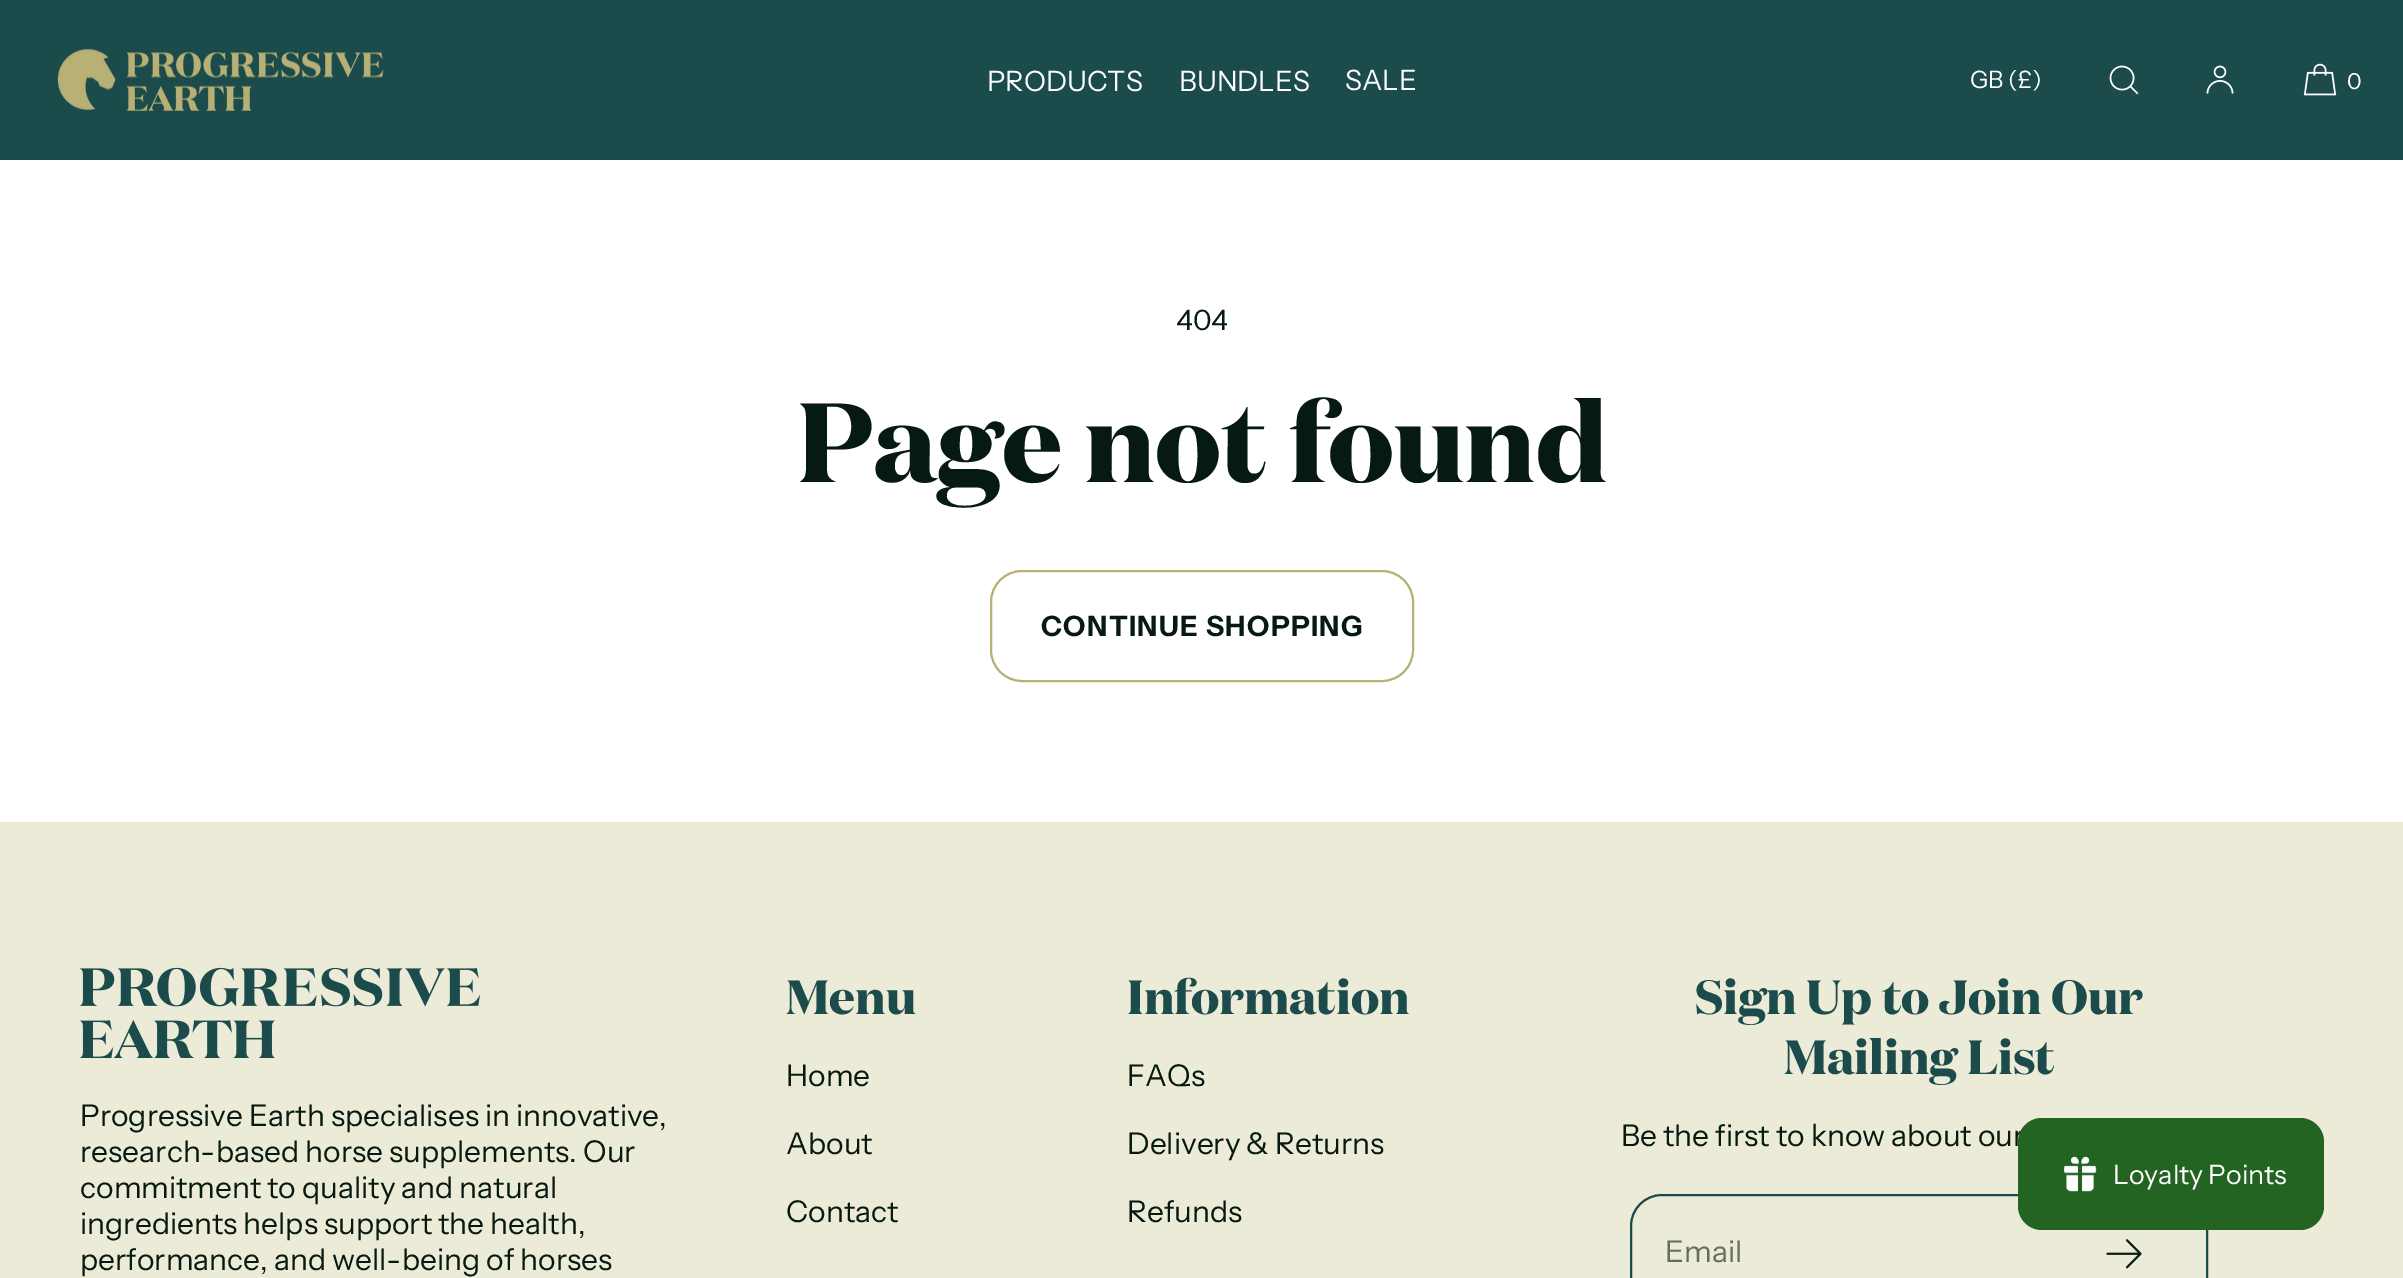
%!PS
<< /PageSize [2403 1278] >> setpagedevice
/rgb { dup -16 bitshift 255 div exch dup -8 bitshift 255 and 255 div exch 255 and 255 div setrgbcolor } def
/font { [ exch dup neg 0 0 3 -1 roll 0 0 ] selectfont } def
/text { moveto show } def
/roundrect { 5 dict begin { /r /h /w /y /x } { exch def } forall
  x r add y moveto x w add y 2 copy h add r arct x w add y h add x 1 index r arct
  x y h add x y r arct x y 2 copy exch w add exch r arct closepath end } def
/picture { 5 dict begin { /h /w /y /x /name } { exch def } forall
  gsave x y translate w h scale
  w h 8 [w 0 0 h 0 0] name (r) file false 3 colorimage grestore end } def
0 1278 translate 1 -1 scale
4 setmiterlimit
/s1 { /InstrumentSans-Regular 28 font 16#FFFFFF rgb } def
/s2 { /InstrumentSans-Regular 24 font 16#FFFFFF rgb } def
/s3 { /InstrumentSans-Regular 22 font 16#FFFFFF rgb } def
/s4 { /InstrumentSans-Regular 28 font 16#071A11 rgb } def
/s5 { /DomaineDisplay-Bold 112 font 16#071A11 rgb } def
/s6 { /InstrumentSans-Regular 30 font 16#071A11 rgb } def
/s7 { /DomaineDisplay-Bold 48 font 16#1C4B4B rgb } def
/s8 { /InstrumentSans-Regular 30 font 16#626E60 rgb } def
/s9 { /InstrumentSans-Regular 26.75 font 16#FFFFFF rgb } def
16#FFFFFF rgb
0 0 2403 1278 rectfill
16#1C4B4B rgb
0 0 2403 160 rectfill
(pic1.raw) 57 49 327 62 picture
s1
(PRODUCTS) 987 91 text
(BUNDLES) 1179 91 text
(SALE) 1345 90 text
s2
(GB \(£\)) 1970 88 text
(pic2.raw) 2109 65 30 30 picture
(pic3.raw) 2206 65 28 29 picture
(pic4.raw) 2303 63 34 33 picture
s3
(0) 2347 89 text
s4
(404) 1176 330 text
s5
(Page not found) 797 482 text
16#B8B175 rgb
2 setlinewidth
991 571 422 110 31 roundrect stroke
/InstrumentSans-Bold 28 font
16#071A11 rgb
1041 636 moveto 1.4 0 (CONTINUE SHOPPING) ashow
16#EBEBD7 rgb
0 822 2403 456 rectfill
(pic5.raw) 80 967 400 91 picture
s6
(Progressive Earth specialises in innovative,) 80 1126 text
(research-based horse supplements. Our) 80 1162 text
(commitment to quality and natural) 80 1198 text
(ingredients helps support the health,) 80 1234 text
(performance, and well-being of horses) 80 1270 text
s7
(Menu) 786 1014 text
s6
(Home) 786 1086 text
(About) 786 1154 text
(Contact) 786 1222 text
s7
(Information) 1127 1014 text
s6
(FAQs) 1127 1086 text
(Delivery & Returns) 1127 1154 text
(Refunds) 1127 1222 text
s7
(Sign Up to Join Our) 1695 1014 text
(Mailing List) 1784 1074 text
s6
(Be the first to know about our) 1621 1146 text
16#1C4B4B rgb
1631 1195 576 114 31 roundrect stroke
s8
(Email) 1665 1262 text
(pic6.raw) 2106 1239 36 30 picture
16#236423 rgb
2018 1118 306 112 24 roundrect fill
(pic7.raw) 2063 1156 34 36 picture
s9
(Loyalty Points) 2113 1184 text
showpage
